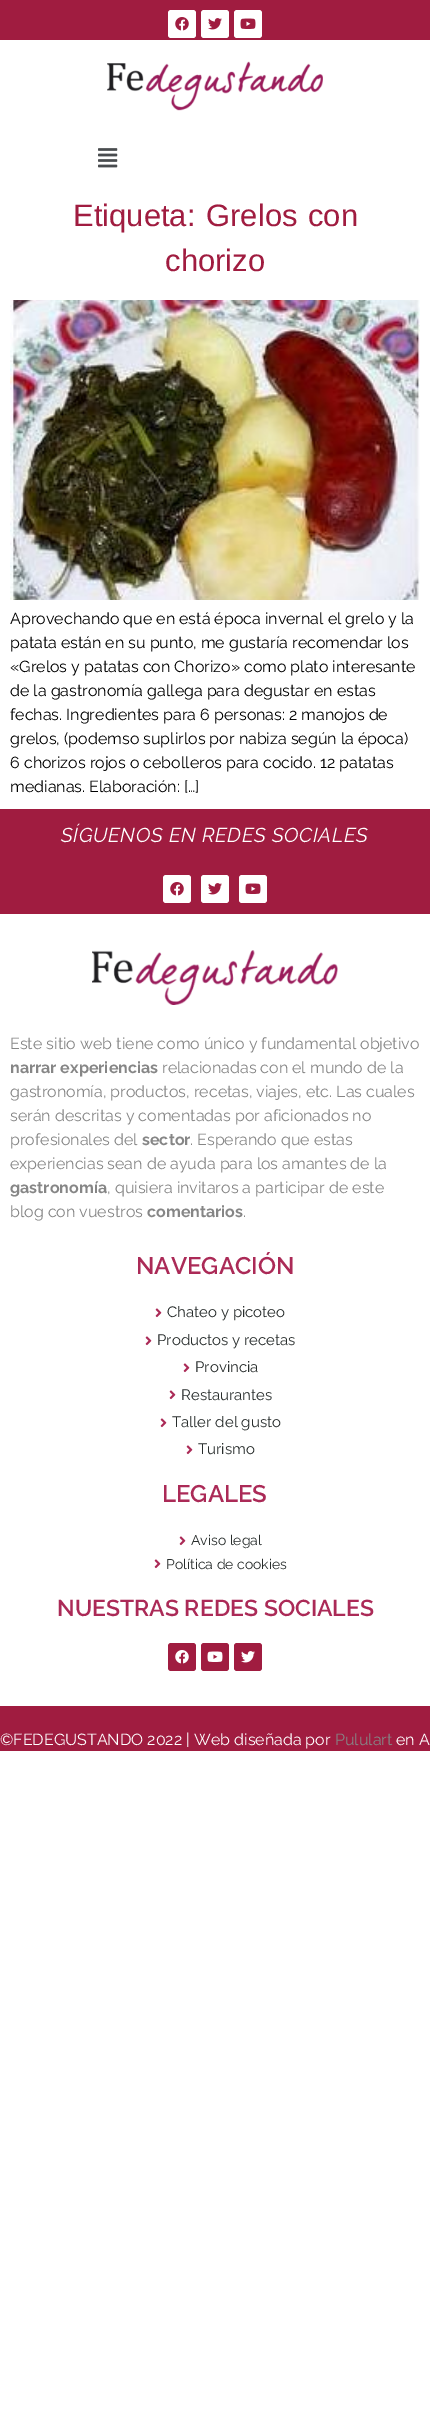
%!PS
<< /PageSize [430 2417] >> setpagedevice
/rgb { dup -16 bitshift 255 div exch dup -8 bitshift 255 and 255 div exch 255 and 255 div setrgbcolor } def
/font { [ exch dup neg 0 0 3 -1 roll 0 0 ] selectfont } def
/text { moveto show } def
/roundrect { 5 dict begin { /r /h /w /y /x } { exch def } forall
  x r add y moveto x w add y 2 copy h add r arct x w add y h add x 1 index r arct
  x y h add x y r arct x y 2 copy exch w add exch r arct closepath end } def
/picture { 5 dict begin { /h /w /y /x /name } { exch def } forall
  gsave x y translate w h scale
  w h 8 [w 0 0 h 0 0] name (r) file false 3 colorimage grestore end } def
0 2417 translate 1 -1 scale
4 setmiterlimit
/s1 { /LiberationSans-Regular 31 font 16#A01C40 rgb } def
/s2 { /Raleway-Regular 16 font 16#000000 rgb } def
/s3 { /Raleway-Regular 16 font 16#868686 rgb } def
/s4 { /Raleway-Bold 16 font 16#868686 rgb } def
/s5 { /Raleway-SemiBold 24 font 16#AB2A57 rgb } def
/s6 { /Raleway-Regular 15 font 16#282D2C rgb } def
/s7 { /Raleway-Regular 14 font 16#282D2C rgb } def
/s8 { /Raleway-SemiBold 23 font 16#AB2A57 rgb } def
/s9 { /Raleway-Regular 16 font 16#FFFFFF rgb } def
16#FFFFFF rgb
0 0 430 2417 rectfill
16#A01C40 rgb
0 0 430 40 rectfill
16#FFFFFF rgb
168 10 28 28 3 roundrect fill
(pic1.raw) 175 17 14 14 picture
201 10 28 28 3 roundrect fill
(pic2.raw) 208 18 14 12 picture
234 10 28 28 3 roundrect fill
(pic3.raw) 240 18 16 11 picture
(pic4.raw) 107 61 216 50 picture
(pic5.raw) 98 148 20 20 picture
s1
(Etiqueta:) 73 226 text
206 226 moveto 2 0 32 (Grelos con) widthshow
(chorizo) 165 271 text
(pic6.raw) 10 300 410 300 picture
s2
(Aprovechando que en está época invernal el grelo y la) 10 624 text
(patata están en su punto, me gustaría recomendar los) 10 648 text
(«Grelos y patatas con Chorizo» como plato interesante) 10 672 text
(de la gastronomía gallega para degustar en estas) 10 696 text
(fechas. Ingredientes para 6 personas: 2 manojos de) 10 720 text
(grelos, \(podemso suplirlos por nabiza según la época\)) 10 744 text
(6 chorizos rojos o cebolleros para cocido. 12 patatas) 10 768 text
(medianas. Elaboración: […]) 10 792 text
16#A01C40 rgb
0 809 430 105 rectfill
/Raleway-Italic 20 font
16#FFFFFF rgb
61 842 moveto 0.6 0 (SÍGUENOS EN REDES SOCIALES) ashow
163 875 28 28 3 roundrect fill
(pic1.raw) 170 882 14 14 picture
201 875 28 28 3 roundrect fill
(pic2.raw) 208 883 14 12 picture
239 875 28 28 3 roundrect fill
(pic3.raw) 245 883 16 11 picture
(pic7.raw) 92 950 246 55 picture
s3
(Este sitio web tiene como único y fundamental objetivo) 10 1049 text
s4
(narrar experiencias) 10 1073 text
s3
(relacionadas con el mundo de la) 162 1073 text
(gastronomía, productos, recetas, viajes, etc. Las cuales) 10 1097 text
(serán descritas y comentadas por aficionados no) 10 1121 text
(profesionales del) 10 1145 text
s4
(sector) 142 1145 text
s3
(. Esperando que estas) 190 1145 text
(experiencias sean de ayuda para los amantes de la) 10 1169 text
s4
(gastronomía) 10 1193 text
s3
(, quisiera invitaros a participar de este) 107 1193 text
(blog con vuestros) 10 1217 text
s4
(comentarios) 147 1217 text
s3
(.) 243 1217 text
s5
(NAVEGACIÓN) 136 1274 text
(pic8.raw) 155 1308 7 10 picture
s6
(Chateo y picoteo) 167 1317 text
(pic8.raw) 145 1336 7 10 picture
(Productos y recetas) 157 1345 text
(pic8.raw) 183 1363 7 10 picture
(Provincia) 195 1372 text
(pic8.raw) 169 1390 7 10 picture
(Restaurantes) 181 1400 text
(pic8.raw) 160 1418 7 10 picture
(Taller del gusto) 172 1427 text
(pic8.raw) 186 1445 7 10 picture
(Turismo) 198 1454 text
s5
(LEGALES) 162 1502 text
(pic8.raw) 179 1536 7 10 picture
s7
(Aviso legal) 191 1545 text
(pic8.raw) 154 1559 7 10 picture
(Política de cookies) 166 1569 text
s8
(NUESTRAS REDES SOCIALES) 57 1616 text
16#A01C40 rgb
168 1643 28 28 3 roundrect fill
(pic9.raw) 175 1650 14 14 picture
201 1643 28 28 3 roundrect fill
(pic10.raw) 207 1651 16 11 picture
234 1643 28 28 3 roundrect fill
(pic11.raw) 241 1651 14 12 picture
0 1706 430 45 rectfill
s9
(©FEDEGUSTANDO 2022 | Web diseñada por) 0 1745 text
s3
(Pululart) 335 1745 text
s9
(en A) 396 1745 text
showpage
